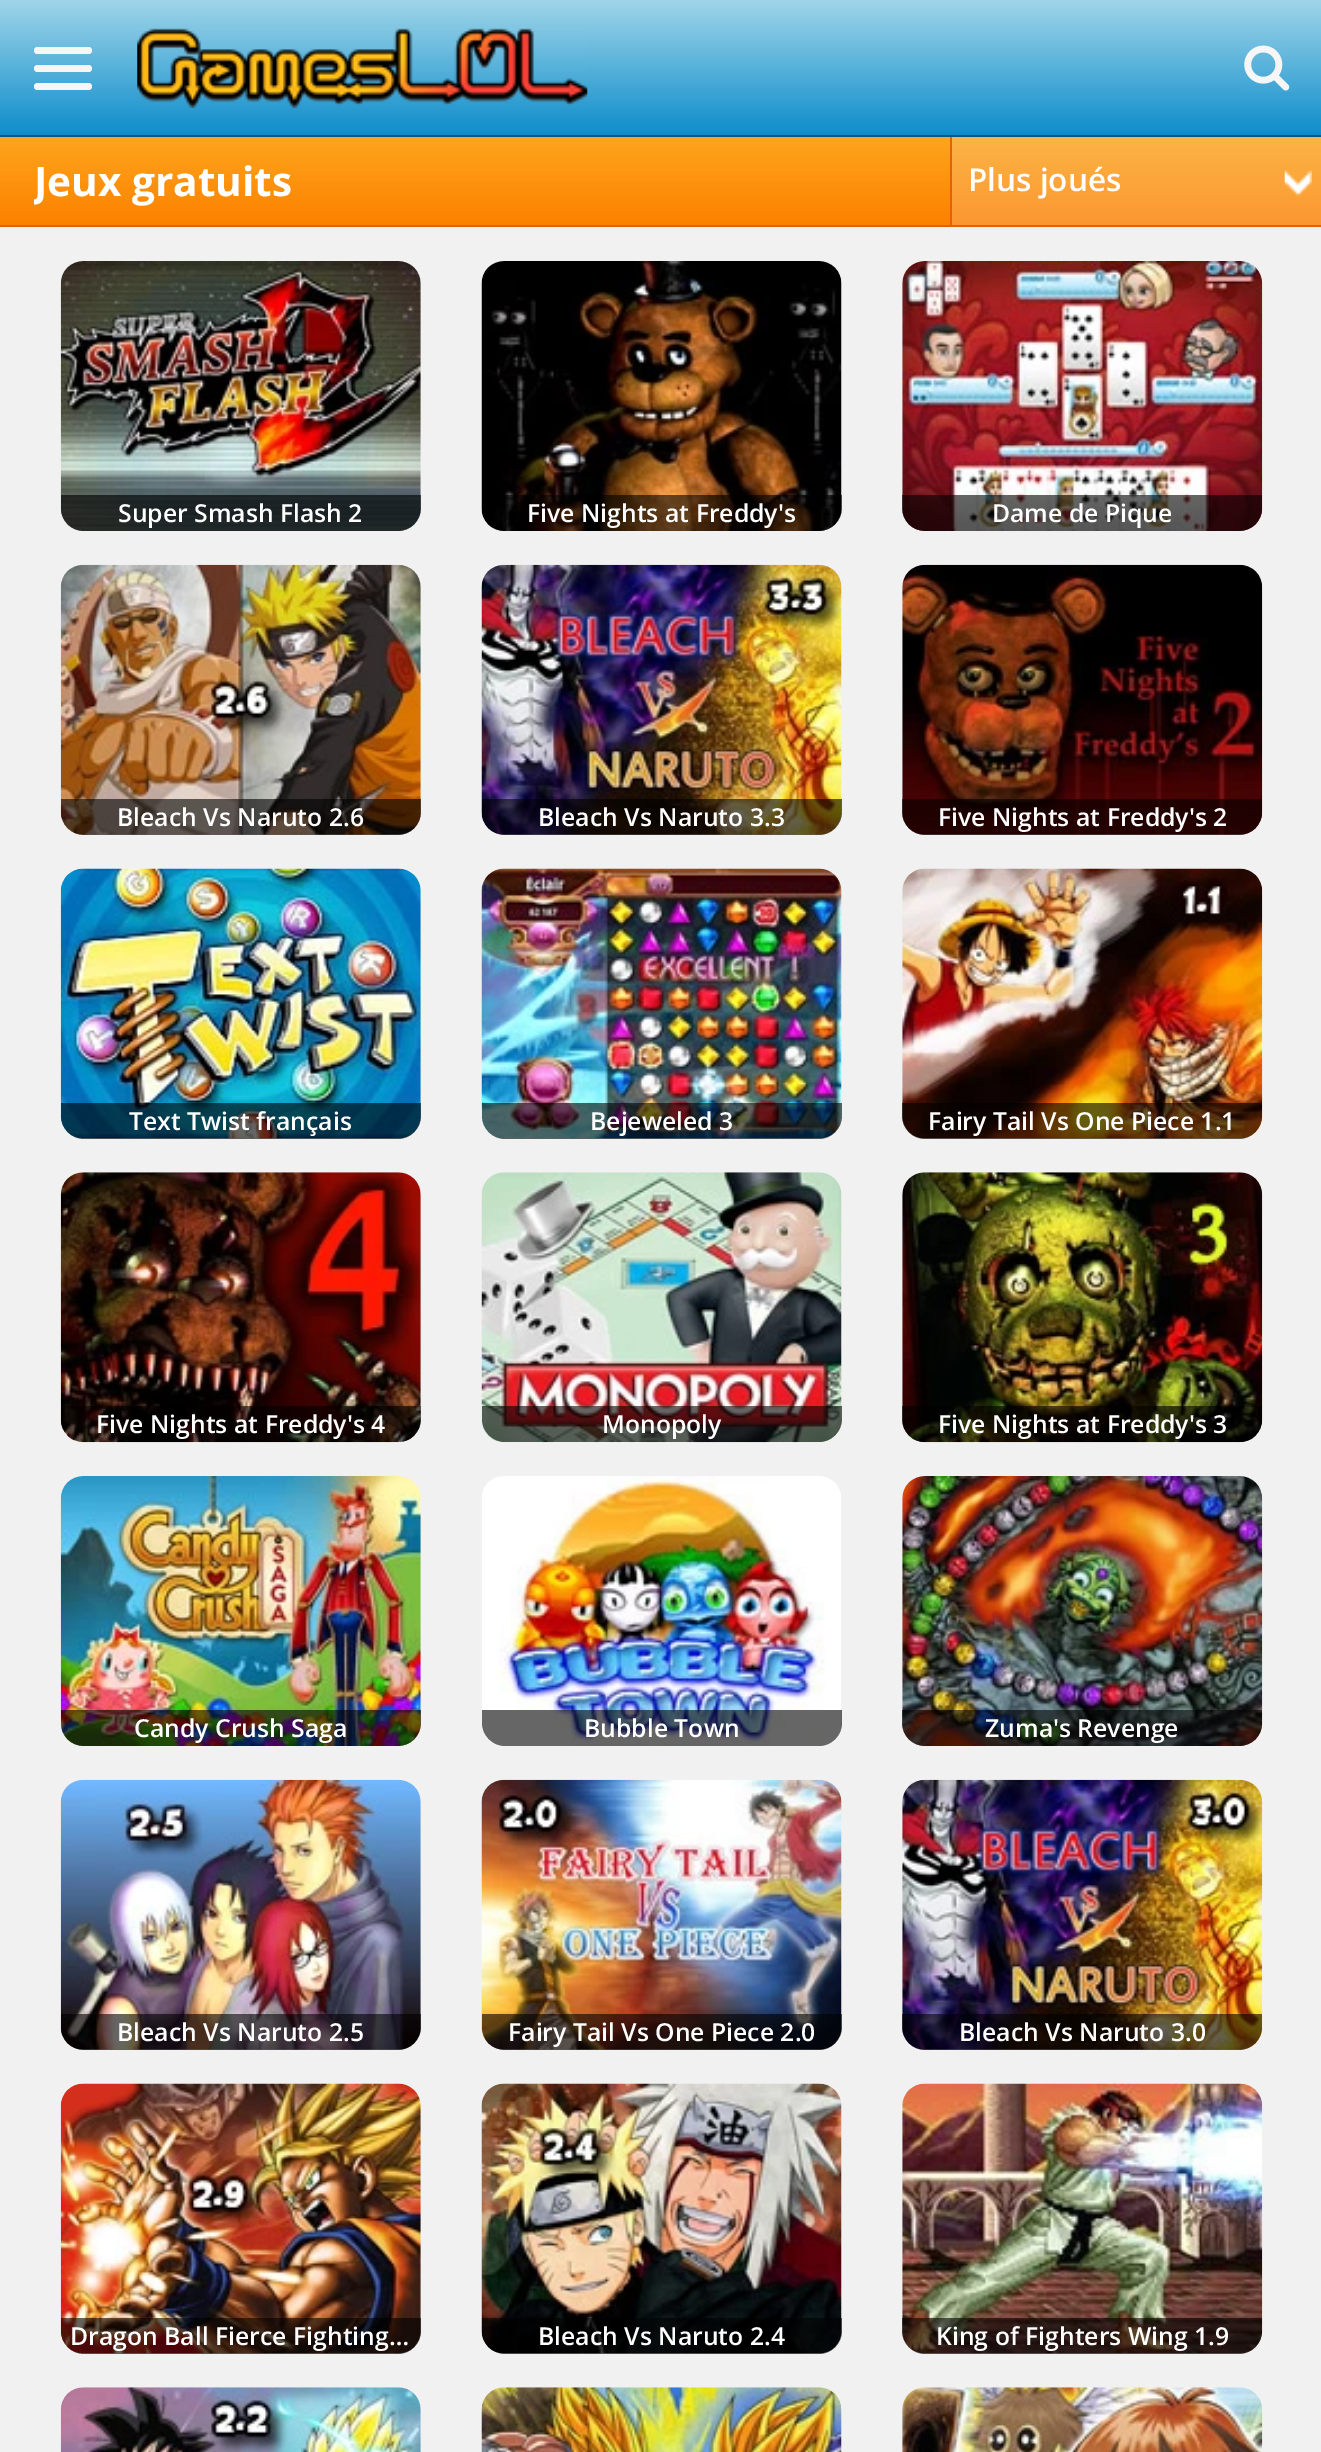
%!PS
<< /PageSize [1321 2452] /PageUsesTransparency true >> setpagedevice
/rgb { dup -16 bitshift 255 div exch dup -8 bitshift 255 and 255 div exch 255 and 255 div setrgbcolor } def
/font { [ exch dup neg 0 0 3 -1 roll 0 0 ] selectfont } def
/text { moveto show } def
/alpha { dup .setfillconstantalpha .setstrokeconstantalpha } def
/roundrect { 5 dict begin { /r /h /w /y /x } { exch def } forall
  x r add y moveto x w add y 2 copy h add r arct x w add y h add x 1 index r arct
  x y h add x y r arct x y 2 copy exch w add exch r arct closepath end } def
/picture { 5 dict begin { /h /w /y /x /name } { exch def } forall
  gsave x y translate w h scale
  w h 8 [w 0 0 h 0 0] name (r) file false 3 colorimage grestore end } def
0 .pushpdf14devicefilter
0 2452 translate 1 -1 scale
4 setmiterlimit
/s1 { /OpenSans-Bold 40.5 font 16#FFFFFF rgb } def
/s2 { /OpenSans-SemiBold 31.5 font 16#FFFFFF rgb } def
/s3 { /OpenSans-SemiBold 24.75 font 16#FFFFFF rgb } def
16#FFFFFF rgb
0 0 1321 2452 rectfill
gsave 0 0 moveto 1321 0 lineto 1321 135 lineto 0 135 lineto closepath clip newpath
<< /ShadingType 2 /ColorSpace /DeviceRGB /Coords [662 0 662 135] /Extend [true true] /Function << /FunctionType 2 /Domain [0 1] /C0 [0.627 0.835 0.914] /C1 [0.055 0.553 0.796] /N 1 >> >> shfill grestore
16#E76005 rgb
0 225 1321 2 rectfill
950 135 2 92 rectfill
16#005589 rgb
0 135 1321 2 rectfill
16#F6F6F6 rgb
34 47 58 7 3.5 roundrect fill
34 65 58 7 3.5 roundrect fill
34 83 58 7 3.5 roundrect fill
(pic1.raw) 137 28 451 80 picture
(pic2.raw) 1244 45 46 46 picture
gsave 0 137 moveto 950 137 lineto 950 225 lineto 0 225 lineto closepath clip newpath
<< /ShadingType 2 /ColorSpace /DeviceRGB /Coords [662 135 662 225] /Extend [true true] /Function << /FunctionType 2 /Domain [0 1] /C0 [0.996 0.651 0.118] /C1 [0.988 0.506 0] /N 1 >> >> shfill grestore
gsave
34 153 259 54 rectclip
s1
(Jeux gratuits) 34 196 text
grestore
gsave 952 137 moveto 1321 137 lineto 1321 225 lineto 952 225 lineto closepath clip newpath
<< /ShadingType 2 /ColorSpace /DeviceRGB /Coords [1137 135 1137 225] /Extend [true true] /Function << /FunctionType 2 /Domain [0 1] /C0 [0.984 0.71 0.271] /C1 [0.988 0.592 0.188] /N 1 >> >> shfill grestore
s2
(Plus joués) 968 191 text
(pic3.raw) 1284 170 28 27 picture
16#F1F1F1 rgb
0 227 1321 2225 rectfill
(pic4.raw) 60 261 361 270 picture
0.6 alpha
16#000000 rgb
61 495 moveto 421 495 lineto 421 508 lineto 421 520.5 410.5 531 398 531 curveto 84 531 lineto 71.5 531 61 520.5 61 508 curveto closepath fill
1 alpha
s3
(Super Smash Flash 2) 118 522 text
(pic5.raw) 481 261 361 270 picture
0.6 alpha
16#000000 rgb
482 495 moveto 842 495 lineto 842 508 lineto 842 520.5 831.5 531 819 531 curveto 505 531 lineto 492.5 531 482 520.5 482 508 curveto closepath fill
1 alpha
s3
(Five Nights at Freddy's) 527 522 text
(pic6.raw) 902 261 361 270 picture
0.6 alpha
16#000000 rgb
902 495 moveto 1262 495 lineto 1262 508 lineto 1262 520.5 1251.5 531 1239 531 curveto 925 531 lineto 912.5 531 902 520.5 902 508 curveto closepath fill
1 alpha
s3
(Dame de Pique) 992 522 text
(pic7.raw) 60 564 361 271 picture
0.6 alpha
16#000000 rgb
61 799 moveto 421 799 lineto 421 812 lineto 421 824.5 410.5 835 398 835 curveto 84 835 lineto 71.5 835 61 824.5 61 812 curveto closepath fill
1 alpha
s3
(Bleach Vs Naruto 2.6) 117 826 text
(pic8.raw) 481 564 361 271 picture
0.6 alpha
16#000000 rgb
482 799 moveto 842 799 lineto 842 812 lineto 842 824.5 831.5 835 819 835 curveto 505 835 lineto 492.5 835 482 824.5 482 812 curveto closepath fill
1 alpha
s3
(Bleach Vs Naruto 3.3) 538 826 text
(pic9.raw) 902 564 361 271 picture
0.6 alpha
16#000000 rgb
902 799 moveto 1262 799 lineto 1262 812 lineto 1262 824.5 1251.5 835 1239 835 curveto 925 835 lineto 912.5 835 902 824.5 902 812 curveto closepath fill
1 alpha
s3
(Five Nights at Freddy's 2) 938 826 text
(pic10.raw) 60 868 361 271 picture
0.6 alpha
16#000000 rgb
61 1103 moveto 421 1103 lineto 421 1116 lineto 421 1128.5 410.5 1139 398 1139 curveto 84 1139 lineto 71.5 1139 61 1128.5 61 1116 curveto closepath fill
1 alpha
s3
(Text Twist français) 129 1130 text
(pic11.raw) 481 868 361 271 picture
0.6 alpha
16#000000 rgb
482 1103 moveto 842 1103 lineto 842 1116 lineto 842 1128.5 831.5 1139 819 1139 curveto 505 1139 lineto 492.5 1139 482 1128.5 482 1116 curveto closepath fill
1 alpha
s3
(Bejeweled 3) 590 1130 text
(pic12.raw) 902 868 361 271 picture
0.6 alpha
16#000000 rgb
902 1103 moveto 1262 1103 lineto 1262 1116 lineto 1262 1128.5 1251.5 1139 1239 1139 curveto 925 1139 lineto 912.5 1139 902 1128.5 902 1116 curveto closepath fill
1 alpha
s3
(Fairy Tail Vs One Piece 1.1) 928 1130 text
(pic13.raw) 60 1172 361 271 picture
0.6 alpha
16#000000 rgb
61 1406 moveto 421 1406 lineto 421 1419 lineto 421 1431.5 410.5 1442 398 1442 curveto 84 1442 lineto 71.5 1442 61 1431.5 61 1419 curveto closepath fill
1 alpha
s3
(Five Nights at Freddy's 4) 96 1433 text
(pic14.raw) 481 1172 361 271 picture
0.6 alpha
16#000000 rgb
482 1406 moveto 842 1406 lineto 842 1419 lineto 842 1431.5 831.5 1442 819 1442 curveto 505 1442 lineto 492.5 1442 482 1431.5 482 1419 curveto closepath fill
1 alpha
s3
(Monopoly) 602 1433 text
(pic15.raw) 902 1172 361 271 picture
0.6 alpha
16#000000 rgb
902 1406 moveto 1262 1406 lineto 1262 1419 lineto 1262 1431.5 1251.5 1442 1239 1442 curveto 925 1442 lineto 912.5 1442 902 1431.5 902 1419 curveto closepath fill
1 alpha
s3
(Five Nights at Freddy's 3) 938 1433 text
(pic16.raw) 60 1476 361 270 picture
0.6 alpha
16#000000 rgb
61 1710 moveto 421 1710 lineto 421 1723 lineto 421 1735.5 410.5 1746 398 1746 curveto 84 1746 lineto 71.5 1746 61 1735.5 61 1723 curveto closepath fill
1 alpha
s3
(Candy Crush Saga) 134 1737 text
(pic17.raw) 482 1476 359 270 picture
0.6 alpha
16#000000 rgb
482 1710 moveto 842 1710 lineto 842 1723 lineto 842 1735.5 831.5 1746 819 1746 curveto 505 1746 lineto 492.5 1746 482 1735.5 482 1723 curveto closepath fill
1 alpha
s3
(Bubble Town) 584 1737 text
(pic18.raw) 902 1476 361 270 picture
0.6 alpha
16#000000 rgb
902 1710 moveto 1262 1710 lineto 1262 1723 lineto 1262 1735.5 1251.5 1746 1239 1746 curveto 925 1746 lineto 912.5 1746 902 1735.5 902 1723 curveto closepath fill
1 alpha
s3
(Zuma's Revenge) 985 1737 text
(pic19.raw) 60 1779 361 271 picture
0.6 alpha
16#000000 rgb
61 2014 moveto 421 2014 lineto 421 2027 lineto 421 2039.5 410.5 2050 398 2050 curveto 84 2050 lineto 71.5 2050 61 2039.5 61 2027 curveto closepath fill
1 alpha
s3
(Bleach Vs Naruto 2.5) 117 2041 text
(pic20.raw) 481 1779 361 271 picture
0.6 alpha
16#000000 rgb
482 2014 moveto 842 2014 lineto 842 2027 lineto 842 2039.5 831.5 2050 819 2050 curveto 505 2050 lineto 492.5 2050 482 2039.5 482 2027 curveto closepath fill
1 alpha
s3
(Fairy Tail Vs One Piece 2.0) 508 2041 text
(pic21.raw) 902 1779 361 271 picture
0.6 alpha
16#000000 rgb
902 2014 moveto 1262 2014 lineto 1262 2027 lineto 1262 2039.5 1251.5 2050 1239 2050 curveto 925 2050 lineto 912.5 2050 902 2039.5 902 2027 curveto closepath fill
1 alpha
s3
(Bleach Vs Naruto 3.0) 959 2041 text
(pic22.raw) 60 2083 361 271 picture
0.6 alpha
16#000000 rgb
61 2318 moveto 421 2318 lineto 421 2331 lineto 421 2343.5 410.5 2354 398 2354 curveto 84 2354 lineto 71.5 2354 61 2343.5 61 2331 curveto closepath fill
1 alpha
s3
(Dragon Ball Fierce Fighting…) 70 2345 text
(pic23.raw) 481 2083 361 271 picture
0.6 alpha
16#000000 rgb
482 2318 moveto 842 2318 lineto 842 2331 lineto 842 2343.5 831.5 2354 819 2354 curveto 505 2354 lineto 492.5 2354 482 2343.5 482 2331 curveto closepath fill
1 alpha
s3
(Bleach Vs Naruto 2.4) 538 2345 text
(pic24.raw) 902 2083 361 271 picture
0.6 alpha
16#000000 rgb
902 2318 moveto 1262 2318 lineto 1262 2331 lineto 1262 2343.5 1251.5 2354 1239 2354 curveto 925 2354 lineto 912.5 2354 902 2343.5 902 2331 curveto closepath fill
1 alpha
s3
(King of Fighters Wing 1.9) 936 2345 text
(pic25.raw) 60 2387 361 65 picture
(pic26.raw) 481 2387 361 65 picture
(pic27.raw) 902 2387 361 65 picture
.poppdf14devicefilter showpage
